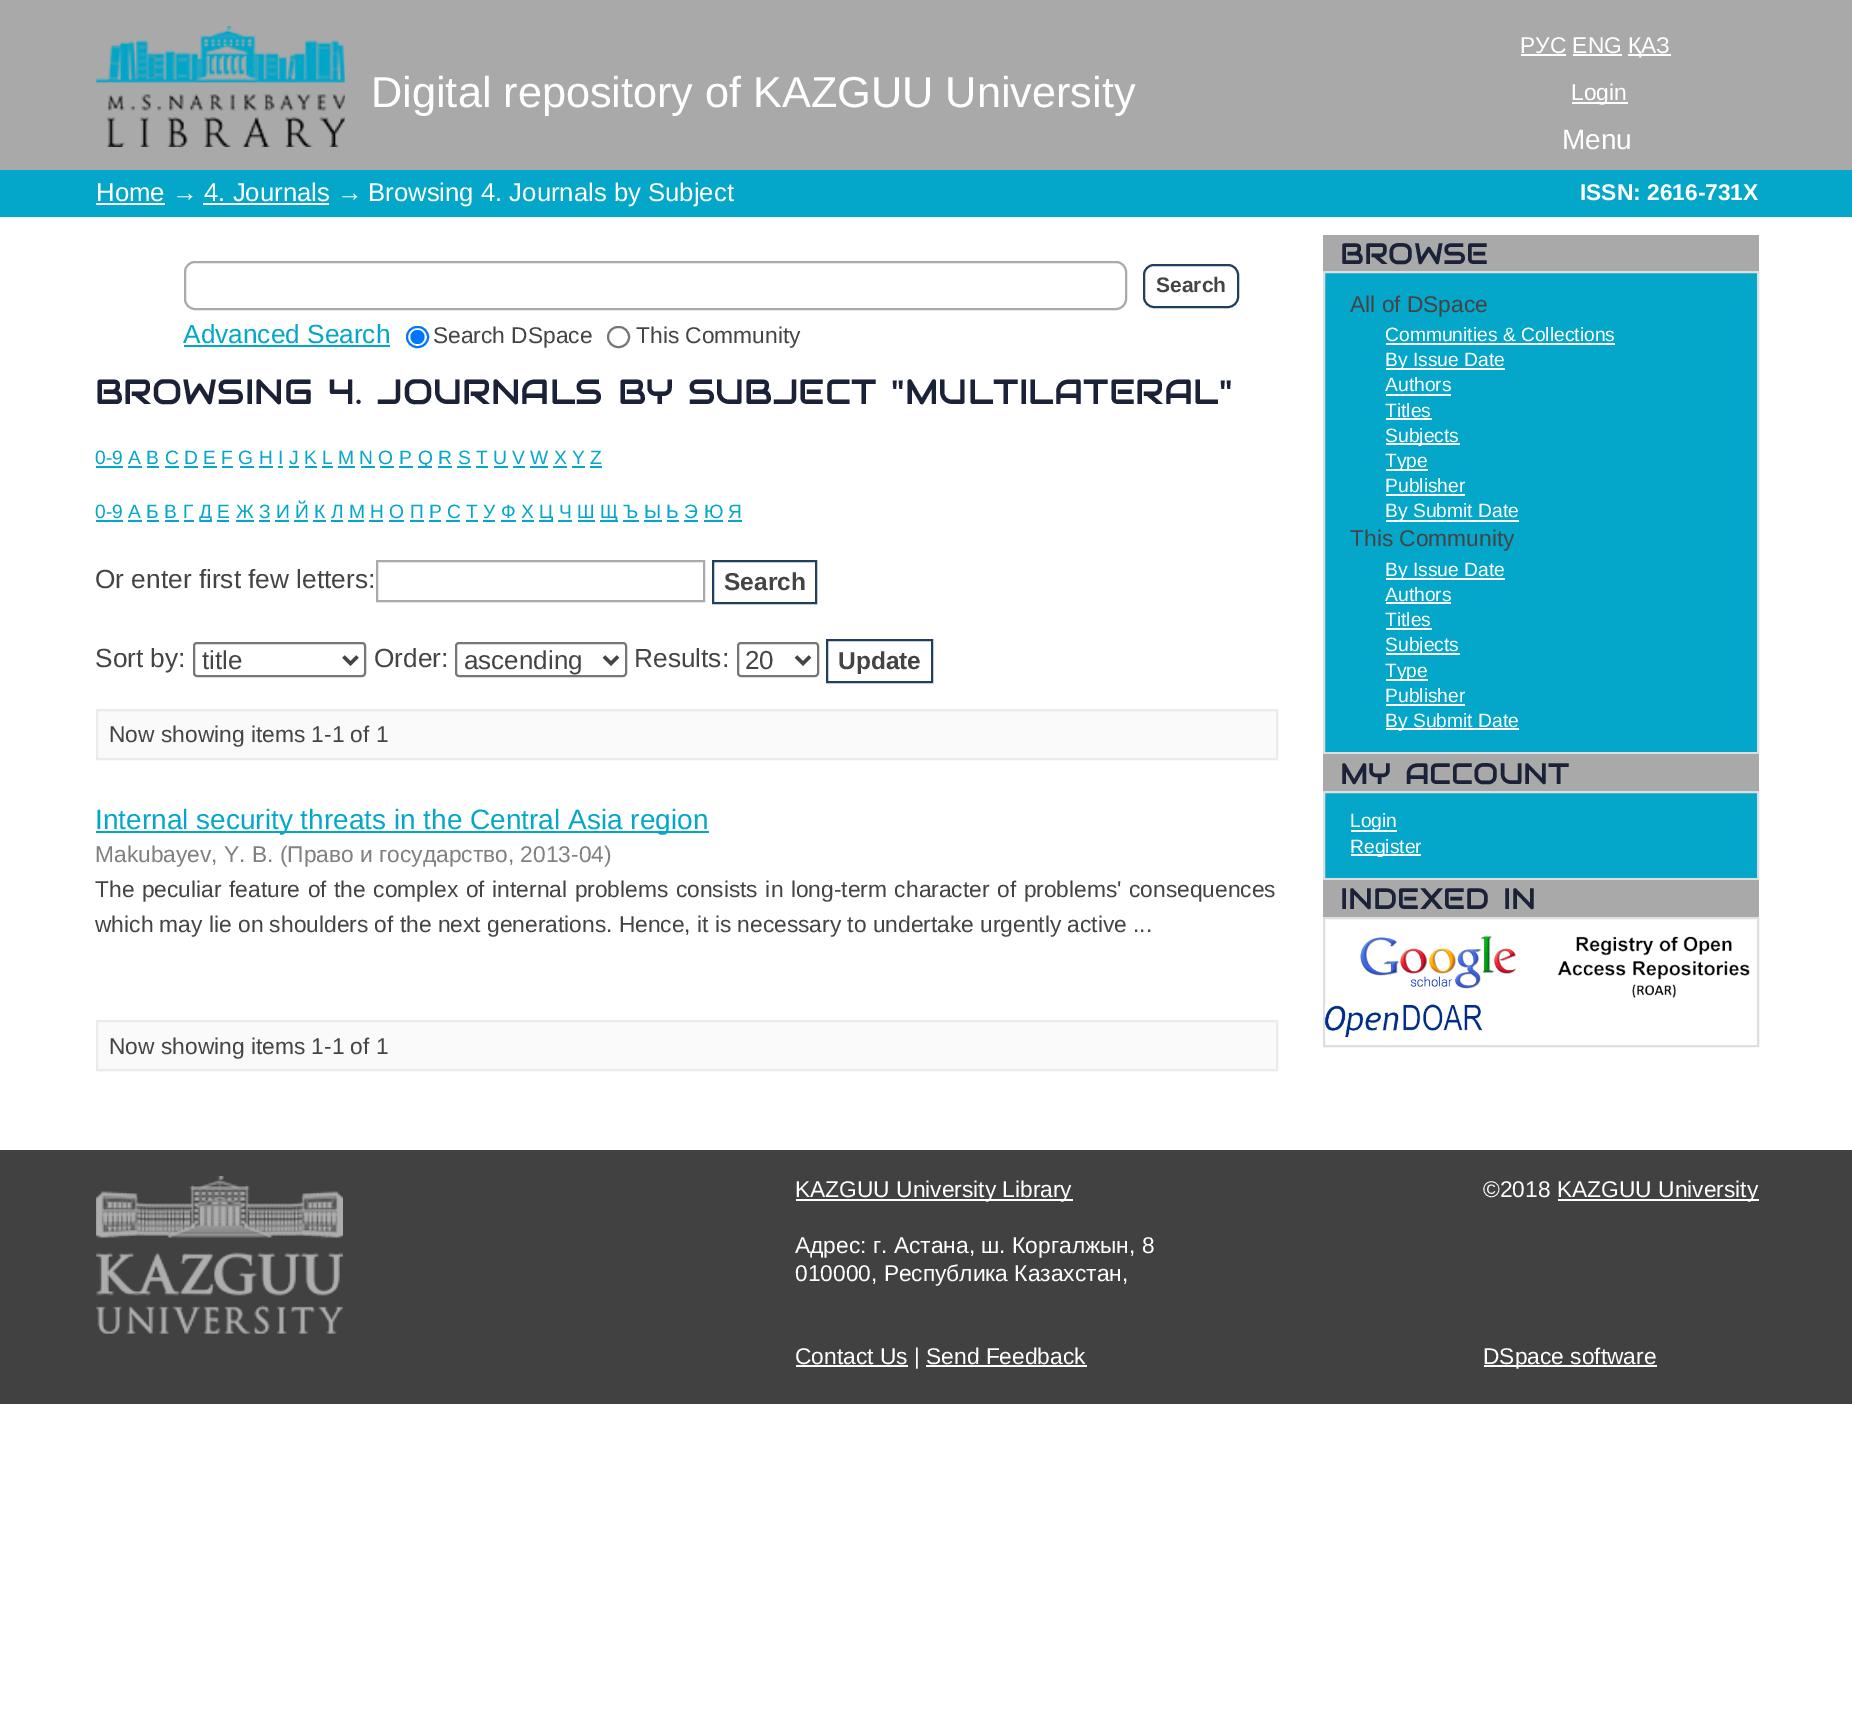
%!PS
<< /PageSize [1852 1718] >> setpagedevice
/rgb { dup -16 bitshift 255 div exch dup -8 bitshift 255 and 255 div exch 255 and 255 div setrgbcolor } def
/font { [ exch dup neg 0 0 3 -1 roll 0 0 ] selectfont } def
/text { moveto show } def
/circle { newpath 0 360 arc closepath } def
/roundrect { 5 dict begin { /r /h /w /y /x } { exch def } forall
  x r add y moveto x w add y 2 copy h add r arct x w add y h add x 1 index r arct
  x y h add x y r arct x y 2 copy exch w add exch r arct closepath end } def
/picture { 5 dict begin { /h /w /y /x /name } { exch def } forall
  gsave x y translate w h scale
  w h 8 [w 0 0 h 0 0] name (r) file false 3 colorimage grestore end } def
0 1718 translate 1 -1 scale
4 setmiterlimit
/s1 { /LiberationSans-Regular 22.75 font 16#FFFFFF rgb } def
/s2 { /LiberationSans-Regular 43.25 font 16#FFFFFF rgb } def
/s3 { /LiberationSans-Regular 28 font 16#FFFFFF rgb } def
/s4 { /LiberationSans-Regular 25.7 font 16#FFFFFF rgb } def
/s5 { /LiberationSans-Bold 22.75 font 16#FFFFFF rgb } def
/s6 { /LiberationSans-Bold 21 font 16#444444 rgb } def
/s7 { /LiberationSans-Regular 26.25 font 16#04A7CA rgb } def
/s8 { /LiberationSans-Regular 22.75 font 16#444444 rgb } def
/s9 { /LiberationSans-Regular 19.25 font 16#04A7CA rgb } def
/s10 { /LiberationSans-Regular 26.25 font 16#444444 rgb } def
/s11 { /LiberationSans-Bold 24.5 font 16#444444 rgb } def
/s12 { /LiberationSans-Regular 26 font 16#444444 rgb } def
/s13 { /LiberationSans-Regular 28 font 16#04A7CA rgb } def
/s14 { /LiberationSans-Regular 22.75 font 16#808080 rgb } def
/s15 { /Audiowide-Regular 29.5 font 16#1B2238 rgb } def
/s16 { /LiberationSans-Regular 19.25 font 16#FFFFFF rgb } def
16#FFFFFF rgb
0 0 1852 1718 rectfill
16#A9A9A9 rgb
0 0 1852 170 rectfill
(pic1.raw) 96 26 249 121 picture
s1
(РУС ENG) 1520 53 text
1521 54 45 2 rectfill
1628 54 43 2 rectfill
(ҚАЗ) 1628 53 text
1573 54 49 2 rectfill
s2
(Digital repository of KAZGUU University) 371 107 text
1572 102 56 2 rectfill
s1
(Login) 1571 100 text
s3
(Menu) 1562 149 text
16#04A7CA rgb
0 170 1852 47 rectfill
s4
(Home →) 96 201 text
96 203 69 2 rectfill
(4. Journals →) 204 201 text
203 203 126 2 rectfill
(Browsing 4. Journals by Subject) 368 201 text
s5
(ISSN: 2616-731X) 1580 200 text
16#AAAAAA rgb
2 setlinewidth
185 262 941 47 10 roundrect stroke
16#1F3F5E rgb
1144 265 94 42 10 roundrect stroke
s6
(Search) 1156 292 text
s7
(Advanced Search) 183 343 text
184 345 206 2 rectfill
16#0075FF rgb
407 327 21 20 10 roundrect stroke
417.5 337 7 circle fill
s8
(Search DSpace) 433 343 text
16#767676 rgb
608 327 21 20 10 roundrect stroke
s8
(This Community) 636 343 text
/Audiowide-Regular 35 font
16#1B2238 rgb
95 404 moveto 3.5 0 32 (BROWSING 4. JOURNALS BY SUBJECT "MULTILATERAL") widthshow
s9
(0-9 A B C D E F G H I J K L M N O P) 95 464 text
96 466 27 2 rectfill
418 466 14 2 rectfill
(Q R S T U V W X Y Z) 418 464 text
128 466 14 2 rectfill
147 466 12 2 rectfill
165 466 14 2 rectfill
184 466 14 2 rectfill
203 466 14 2 rectfill
222 466 11 2 rectfill
240 466 14 2 rectfill
259 466 14 2 rectfill
278 466 5 2 rectfill
289 466 10 2 rectfill
305 466 12 2 rectfill
322 466 11 2 rectfill
338 466 17 2 rectfill
361 466 14 2 rectfill
380 466 14 2 rectfill
399 466 14 2 rectfill
438 466 14 2 rectfill
457 466 14 2 rectfill
476 466 12 2 rectfill
494 466 14 2 rectfill
513 466 12 2 rectfill
530 466 18 2 rectfill
553 466 14 2 rectfill
572 466 13 2 rectfill
590 466 12 2 rectfill
(0-9 А Б В Г) 95 518 text
96 520 27 2 rectfill
200 520 12 2 rectfill
(Д Е Ж З И Й К Л М Н О П Р С Т У Ф Х) 199 518 text
539 520 14 2 rectfill
(Ц Ч Ш) 539 518 text
600 520 18 2 rectfill
(Щ Ъ Ы Ь Э Ю Я) 600 518 text
128 520 14 2 rectfill
147 520 12 2 rectfill
165 520 14 2 rectfill
184 520 10 2 rectfill
217 520 12 2 rectfill
236 520 18 2 rectfill
259 520 11 2 rectfill
275 520 14 2 rectfill
294 520 14 2 rectfill
313 520 13 2 rectfill
331 520 12 2 rectfill
348 520 16 2 rectfill
369 520 14 2 rectfill
389 520 15 2 rectfill
410 520 14 2 rectfill
429 520 12 2 rectfill
446 520 14 2 rectfill
466 520 12 2 rectfill
483 520 12 2 rectfill
501 520 15 2 rectfill
522 520 12 2 rectfill
558 520 14 2 rectfill
578 520 17 2 rectfill
623 520 16 2 rectfill
644 520 18 2 rectfill
667 520 12 2 rectfill
684 520 14 2 rectfill
704 520 19 2 rectfill
728 520 14 2 rectfill
s10
(Or enter first few letters:) 95 588 text
16#AAAAAA rgb
377 561 327 40 rectstroke
16#1F3F5E rgb
713 561 103 42 rectstroke
s11
(Search) 724 590 text
s10
(Sort by:) 95 667 text
16#767676 rgb
194 643 171 33 3 roundrect stroke
16#444444 rgb
3.5 setlinewidth
343.5 656.5 moveto 350.5 663.5 lineto 357.5 656.5 lineto stroke
s12
(title) 202 669 text
s10
(Order:) 374 667 text
16#767676 rgb
2 setlinewidth
456 643 170 33 3 roundrect stroke
16#444444 rgb
3.5 setlinewidth
604 656.5 moveto 611 663.5 lineto 618 656.5 lineto stroke
s12
(ascending) 464 669 text
s10
(Results:) 634 667 text
16#767676 rgb
2 setlinewidth
738 643 80 33 3 roundrect stroke
16#444444 rgb
3.5 setlinewidth
796 656.5 moveto 803 663.5 lineto 810 656.5 lineto stroke
s12
(20) 745 669 text
16#1F3F5E rgb
2 setlinewidth
827 640 105 42 rectstroke
s11
(Update) 838 669 text
16#FAFAFA rgb
97 710 moveto 1277 710 lineto 1277 759 lineto 97 759 lineto closepath gsave fill grestore
16#EBEBEB rgb
stroke
s8
(Now showing items 1-1 of 1) 109 742 text
16#04A7CA rgb
96 831 613 2 rectfill
s13
(Internal security threats in the Central Asia region) 95 829 text
s14
(Makubayev, Y. B. \(Право и государство, 2013-04\)) 95 862 text
16#444444 rgb
95 897 moveto 1.3 0 32 (The peculiar feature of the complex of internal problems consists in long-term character of problems' consequences) widthshow
(which may lie on shoulders of the next generations. Hence, it is necessary to undertake urgently active ...) 95 932 text
16#FAFAFA rgb
97 1021 moveto 1277 1021 lineto 1277 1070 lineto 97 1070 lineto closepath gsave fill grestore
16#EBEBEB rgb
stroke
s8
(Now showing items 1-1 of 1) 109 1054 text
16#04A7CA rgb
1325 273 432 605 rectfill
16#A9A9A9 rgb
1323 235 436 36 rectfill
s15
(BROWSE) 1340 264 text
16#DDDEE0 rgb
1324 272 434 481 rectstroke
s8
(All of DSpace) 1350 312 text
s16
(Communities & Collections) 1385 341 text
1386 343 229 2 rectfill
1386 368 119 2 rectfill
(By Issue Date) 1385 366 text
(Authors) 1385 391 text
1386 394 65 2 rectfill
(Titles) 1385 417 text
1386 418 46 2 rectfill
1386 443 74 2 rectfill
(Subjects) 1385 442 text
1386 469 42 2 rectfill
(Type) 1385 467 text
(Publisher) 1385 492 text
1386 494 79 2 rectfill
1386 520 133 2 rectfill
(By Submit Date) 1385 517 text
s8
(This Community) 1350 546 text
16#FFFFFF rgb
1386 578 119 2 rectfill
s16
(By Issue Date) 1385 576 text
(Authors) 1385 601 text
1386 602 65 2 rectfill
(Titles) 1385 626 text
1386 628 46 2 rectfill
1386 653 74 2 rectfill
(Subjects) 1385 651 text
1386 679 42 2 rectfill
(Type) 1385 677 text
(Publisher) 1385 702 text
1386 704 79 2 rectfill
1386 728 133 2 rectfill
(By Submit Date) 1385 727 text
16#A9A9A9 rgb
1323 754 436 37 rectfill
/Audiowide-Regular 29.5 font
16#1B2238 rgb
1340 784 moveto 3.5 0 32 (MY ACCOUNT) widthshow
16#DDDEE0 rgb
1324 792 434 87 rectstroke
16#FFFFFF rgb
1351 830 46 2 rectfill
s16
(Login) 1350 827 text
1351 854 70 2 rectfill
(Register) 1350 853 text
16#A9A9A9 rgb
1323 880 436 37 rectfill
/Audiowide-Regular 29.5 font
16#1B2238 rgb
1340 909 moveto 3.5 0 32 (INDEXED IN) widthshow
16#DDDEE0 rgb
1324 918 434 128 rectstroke
(pic2.raw) 1360 936 157 53 picture
(pic3.raw) 1557 936 193 62 picture
(pic4.raw) 1324 1004 159 34 picture
16#414141 rgb
0 1150 1852 254 rectfill
(pic6.raw) 96 1176 247 158 picture
(pic5.raw) 96 1176 247 158 picture
16#FFFFFF rgb
796 1199 277 2 rectfill
s1
(KAZGUU University Library) 795 1197 text
(Адрес: г. Астана, ш. Коргалжын, 8) 795 1253 text
(010000, Республика Казахстан,) 795 1281 text
(©2018) 1483 1197 text
1558 1199 201 2 rectfill
(KAZGUU University) 1557 1197 text
1484 1365 173 2 rectfill
(DSpace software) 1483 1364 text
796 1365 112 2 rectfill
(Contact Us | Send Feedback) 795 1364 text
926 1365 161 2 rectfill
showpage
